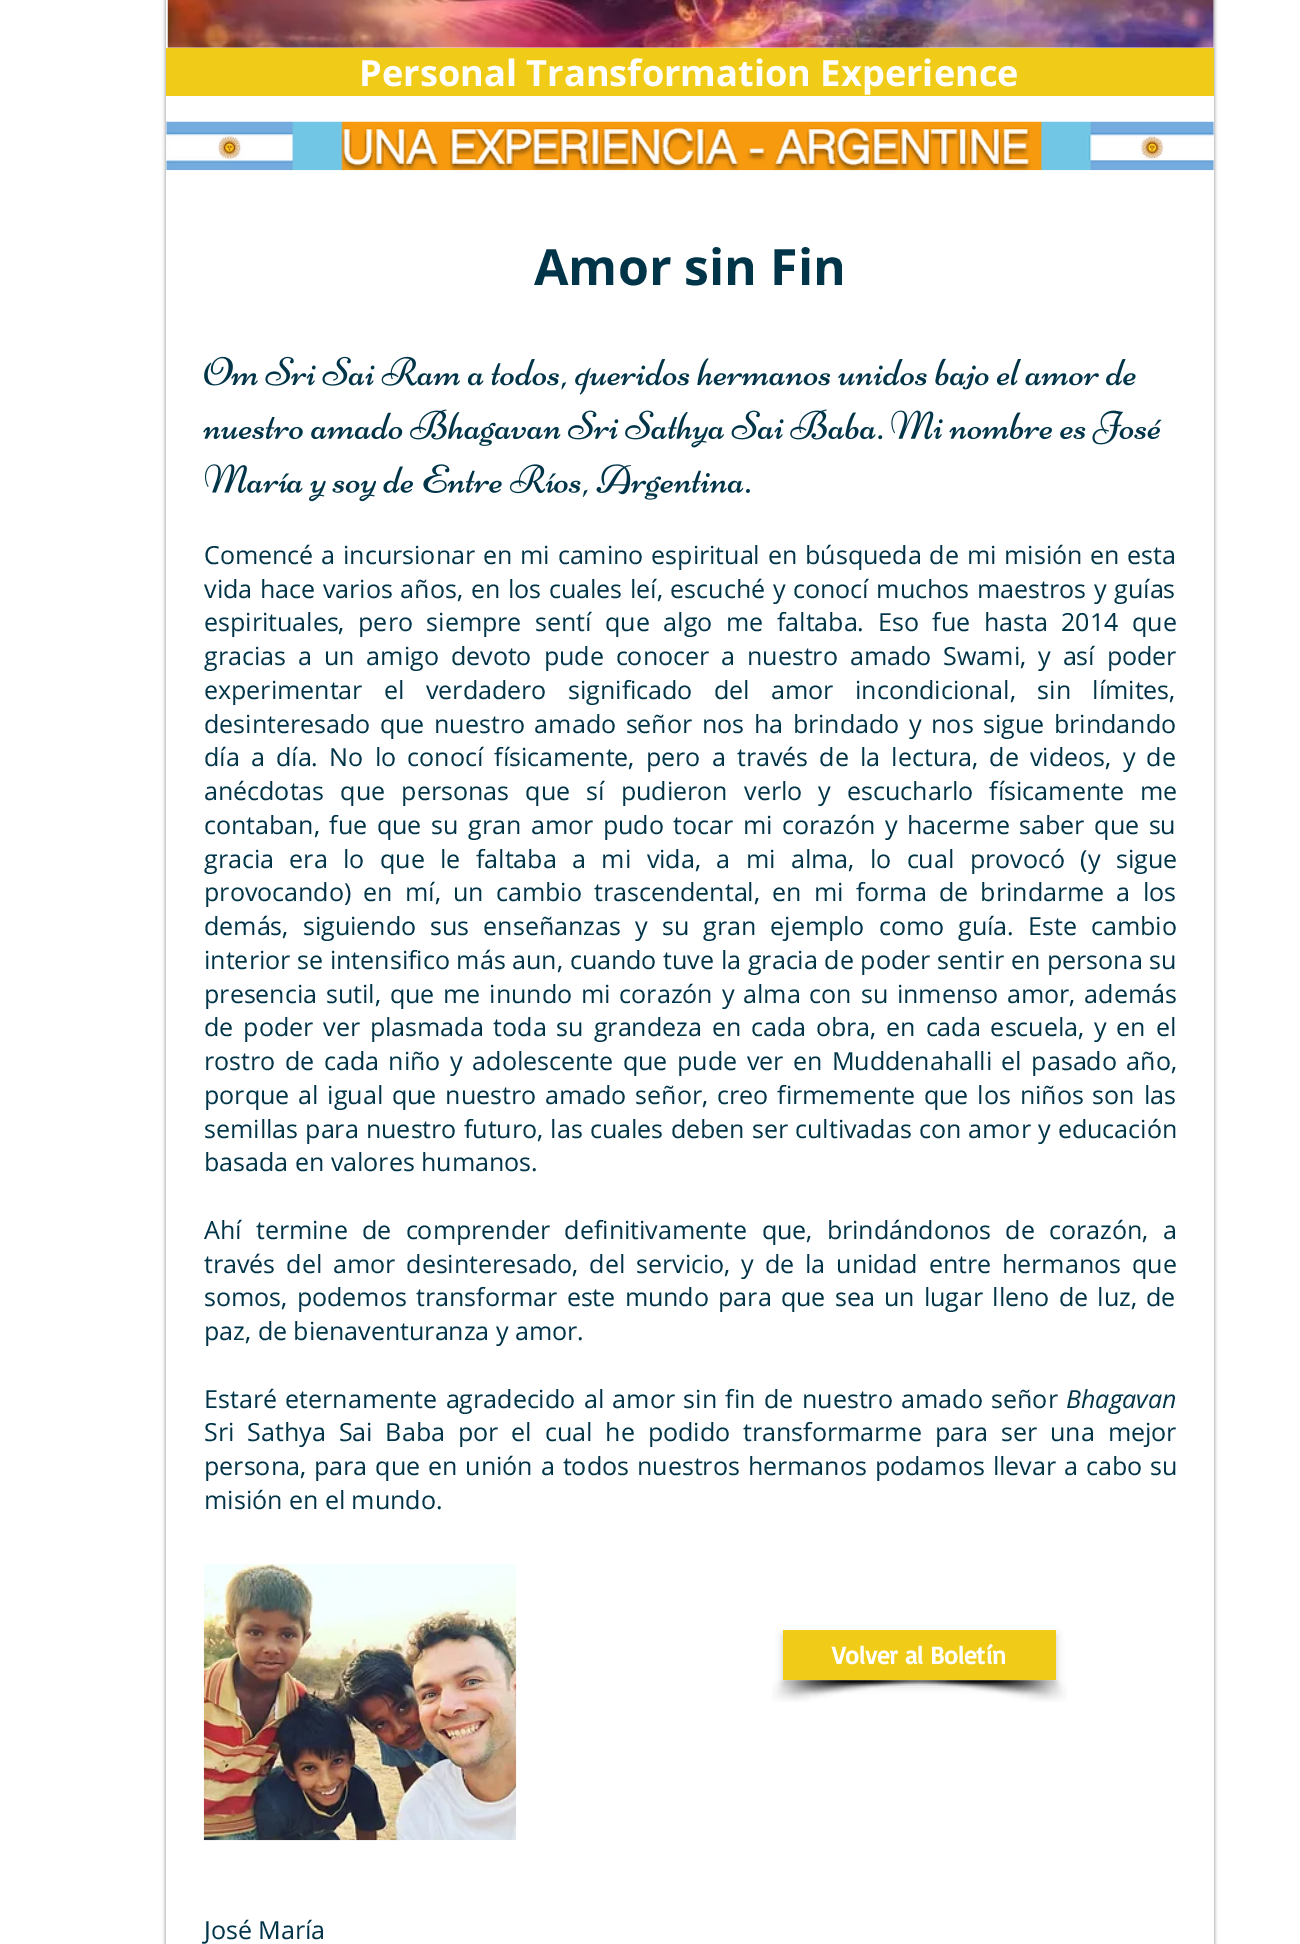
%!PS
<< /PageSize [1300 1944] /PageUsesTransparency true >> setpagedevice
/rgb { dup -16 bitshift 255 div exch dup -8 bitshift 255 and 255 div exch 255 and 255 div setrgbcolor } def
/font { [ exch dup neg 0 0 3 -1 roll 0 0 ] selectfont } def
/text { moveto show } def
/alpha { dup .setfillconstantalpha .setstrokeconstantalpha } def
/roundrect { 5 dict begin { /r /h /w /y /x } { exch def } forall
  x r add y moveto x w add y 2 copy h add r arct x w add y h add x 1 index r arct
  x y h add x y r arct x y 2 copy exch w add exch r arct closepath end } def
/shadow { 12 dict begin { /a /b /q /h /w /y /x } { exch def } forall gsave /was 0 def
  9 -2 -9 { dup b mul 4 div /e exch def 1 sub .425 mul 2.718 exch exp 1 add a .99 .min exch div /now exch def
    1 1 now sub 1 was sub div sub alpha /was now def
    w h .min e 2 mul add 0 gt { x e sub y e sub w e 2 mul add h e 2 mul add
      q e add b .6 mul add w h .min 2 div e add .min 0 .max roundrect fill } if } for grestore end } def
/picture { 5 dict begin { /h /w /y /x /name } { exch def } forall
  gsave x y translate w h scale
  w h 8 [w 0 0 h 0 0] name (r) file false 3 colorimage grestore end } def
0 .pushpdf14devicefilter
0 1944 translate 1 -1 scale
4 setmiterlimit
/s1 { /OpenSans-Bold 36.25 font 16#FFFFFF rgb } def
/s2 { /OpenSans-Bold 50 font 16#003448 rgb } def
/s3 { /OpenSans-Regular 25 font 16#003448 rgb } def
/s4 { /OpenSans-Italic 25 font 16#003448 rgb } def
/s5 { /Basic-Bold 25 font 16#FFFFFF rgb } def
16#FFFFFF rgb
0 0 1300 1944 rectfill
gsave
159 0 moveto 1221 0 lineto 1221 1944 lineto 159 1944 lineto closepath 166 -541 moveto 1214 -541 lineto 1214 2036 lineto 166 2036 lineto closepath eoclip newpath
16#000000 rgb
166 -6 1048 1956 0 2 0.5 shadow
grestore
0.91 alpha
166 0 1048 1944 rectfill
1 alpha
(pic1.raw) 167 0 1047 48 picture
16#F0CC18 rgb
166 48 1048 48 rectfill
s1
(Personal Transformation Experience) 359 86 text
(pic2.raw) 166 121 1048 50 picture
s2
(Amor sin Fin) 534 285 text
(pic3.raw) 204 356 932 39 picture
(pic4.raw) 203 409 959 39 picture
(pic5.raw) 205 464 545 38 picture
/OpenSans-Regular 25 font
204 564 moveto 1.4 0 32 (Comencé a incursionar en mi camino espiritual en búsqueda de mi misión en esta) widthshow
204 598 moveto 1.25 0 32 (vida hace varios años, en los cuales leí, escuché y conocí muchos maestros y guías) widthshow
204 631 moveto 7.1 0 32 (espirituales, pero siempre sentí que algo me faltaba. Eso fue hasta 2014 que) widthshow
204 665 moveto 5.5 0 32 (gracias a un amigo devoto pude conocer a nuestro amado Swami, y así poder) widthshow
204 699 moveto 15 0 32 (experimentar el verdadero significado del amor incondicional, sin límites,) widthshow
204 733 moveto 3.1 0 32 (desinteresado que nuestro amado señor nos ha brindado y nos sigue brindando) widthshow
204 766 moveto 4.75 0 32 (día a día. No lo conocí físicamente, pero a través de la lectura, de videos, y de) widthshow
204 800 moveto 9.75 0 32 (anécdotas que personas que sí pudieron verlo y escucharlo físicamente me) widthshow
204 834 moveto 3.1 0 32 (contaban, fue que su gran amor pudo tocar mi corazón y hacerme saber que su) widthshow
204 868 moveto 9 0 32 (gracia era lo que le faltaba a mi vida, a mi alma, lo cual provocó \(y sigue) widthshow
204 901 moveto 5.75 0 32 (provocando\) en mí, un cambio trascendental, en mi forma de brindarme a los) widthshow
204 935 moveto 7.6 0 32 (demás, siguiendo sus enseñanzas y su gran ejemplo como guía. Este cambio) widthshow
204 969 moveto 0.25 0 32 (interior se intensifico más aun, cuando tuve la gracia de poder sentir en persona su) widthshow
204 1003 moveto 2.4 0 32 (presencia sutil, que me inundo mi corazón y alma con su inmenso amor, además) widthshow
204 1036 moveto 3.4 0 32 (de poder ver plasmada toda su grandeza en cada obra, en cada escuela, y en el) widthshow
204 1070 moveto 3.1 0 32 (rostro de cada niño y adolescente que pude ver en Muddenahalli el pasado año,) widthshow
204 1104 moveto 2.4 0 32 (porque al igual que nuestro amado señor, creo firmemente que los niños son las) widthshow
204 1138 moveto 0.75 0 32 (semillas para nuestro futuro, las cuales deben ser cultivadas con amor y educación) widthshow
(basada en valores humanos.) 204 1171 text
204 1239 moveto 7.75 0 32 (Ahí termine de comprender definitivamente que, brindándonos de corazón, a) widthshow
204 1273 moveto 4.4 0 32 (través del amor desinteresado, del servicio, y de la unidad entre hermanos que) widthshow
204 1306 moveto 2.75 0 32 (somos, podemos transformar este mundo para que sea un lugar lleno de luz, de) widthshow
(paz, de bienaventuranza y amor.) 204 1340 text
204 1408 moveto 2 0 32 (Estaré eternamente agradecido al amor sin fin de nuestro amado señor) widthshow
s4
(Bhagavan) 1066 1408 text
/OpenSans-Regular 25 font
204 1441 moveto 6.5 0 32 (Sri Sathya Sai Baba por el cual he podido transformarme para ser una mejor) widthshow
204 1475 moveto 1.5 0 32 (persona, para que en unión a todos nuestros hermanos podamos llevar a cabo su) widthshow
(misión en el mundo.) 204 1509 text
(pic6.raw) 203 1564 314 277 picture
(pic7.raw) 772 1680 184 22 picture
(pic8.raw) 893 1680 174 22 picture
16#000000 rgb
783 1635 273 50 0 4 0.2 shadow
16#F0CC18 rgb
783 1630 273 50 rectfill
s5
(Volver al Boletín) 832 1664 text
s3
(José María) 204 1939 text
.poppdf14devicefilter showpage
